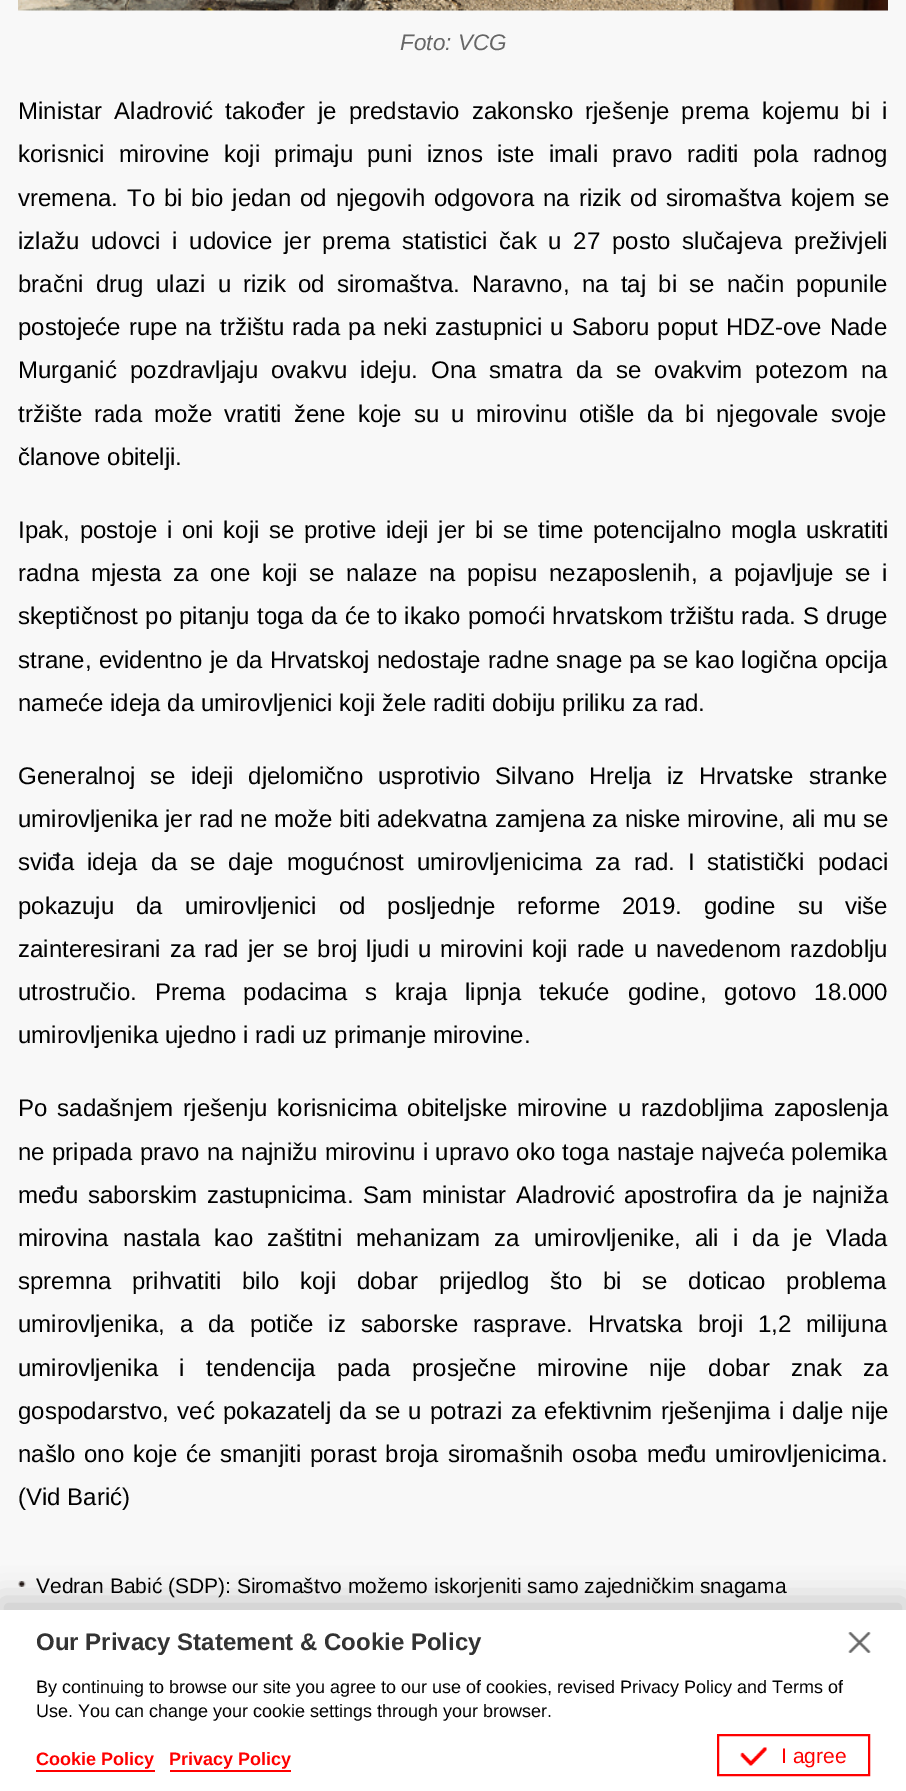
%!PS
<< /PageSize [906 1791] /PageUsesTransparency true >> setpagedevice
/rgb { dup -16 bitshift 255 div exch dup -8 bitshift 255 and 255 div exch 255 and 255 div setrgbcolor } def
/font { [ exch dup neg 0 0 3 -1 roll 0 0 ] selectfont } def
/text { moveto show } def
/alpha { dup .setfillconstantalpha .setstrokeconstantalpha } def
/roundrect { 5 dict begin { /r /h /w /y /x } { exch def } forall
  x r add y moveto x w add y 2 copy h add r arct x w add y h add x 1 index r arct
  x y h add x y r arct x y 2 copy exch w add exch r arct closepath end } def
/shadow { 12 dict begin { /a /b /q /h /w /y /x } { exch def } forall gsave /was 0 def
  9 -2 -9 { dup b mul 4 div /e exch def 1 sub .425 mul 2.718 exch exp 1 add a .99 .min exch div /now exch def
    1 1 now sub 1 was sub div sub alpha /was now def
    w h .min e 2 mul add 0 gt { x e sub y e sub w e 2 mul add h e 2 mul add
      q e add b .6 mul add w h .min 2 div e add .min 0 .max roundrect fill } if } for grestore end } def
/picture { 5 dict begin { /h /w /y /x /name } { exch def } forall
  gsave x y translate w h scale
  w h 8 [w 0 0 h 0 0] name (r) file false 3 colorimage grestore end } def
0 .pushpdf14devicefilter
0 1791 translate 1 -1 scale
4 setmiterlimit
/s1 { /LiberationSans-Italic 22.5 font 16#666666 rgb } def
/s2 { /LiberationSans-Regular 24 font 16#000000 rgb } def
/s3 { /LiberationSans-Regular 21 font 16#000000 rgb } def
/s4 { /LiberationSans-Bold 24 font 16#333333 rgb } def
/s5 { /LiberationSans-Regular 18 font 16#000000 rgb } def
/s6 { /LiberationSans-Bold 18 font 16#FF0000 rgb } def
/s7 { /LiberationSans-Regular 21 font 16#FF0000 rgb } def
16#F8F8F8 rgb
0 0 906 1791 rectfill
(pic1.raw) 18 0 870 11 picture
s1
(Foto: VCG) 400 50 text
/LiberationSans-Regular 24 font
16#000000 rgb
18 119 moveto 5.6 0 32 (Ministar Aladrović također je predstavio zakonsko rješenje prema kojemu bi i) widthshow
18 162 moveto 7.6 0 32 (korisnici mirovine koji primaju puni iznos iste imali pravo raditi pola radnog) widthshow
18 206 moveto 2.25 0 32 (vremena. To bi bio jedan od njegovih odgovora na rizik od siromaštva kojem se) widthshow
18 249 moveto 5.1 0 32 (izlažu udovci i udovice jer prema statistici čak u 27 posto slučajeva preživjeli) widthshow
18 292 moveto 5.6 0 32 (bračni drug ulazi u rizik od siromaštva. Naravno, na taj bi se način popunile) widthshow
18 335 moveto 1.5 0 32 (postojeće rupe na tržištu rada pa neki zastupnici u Saboru poput HDZ-ove Nade) widthshow
18 378 moveto 6.5 0 32 (Murganić pozdravljaju ovakvu ideju. Ona smatra da se ovakvim potezom na) widthshow
18 422 moveto 5.25 0 32 (tržište rada može vratiti žene koje su u mirovinu otišle da bi njegovale svoje) widthshow
(članove obitelji.) 18 465 text
18 538 moveto 3 0 32 (Ipak, postoje i oni koji se protive ideji jer bi se time potencijalno mogla uskratiti) widthshow
18 581 moveto 4.9 0 32 (radna mjesta za one koji se nalaze na popisu nezaposlenih, a pojavljuje se i) widthshow
18 624 moveto 0.5 0 32 (skeptičnost po pitanju toga da će to ikako pomoći hrvatskom tržištu rada. S druge) widthshow
18 668 moveto 0.5 0 32 (strane, evidentno je da Hrvatskoj nedostaje radne snage pa se kao logična opcija) widthshow
(nameće ideja da umirovljenici koji žele raditi dobiju priliku za rad.) 18 711 text
18 784 moveto 8.25 0 32 (Generalnoj se ideji djelomično usprotivio Silvano Hrelja iz Hrvatske stranke) widthshow
18 827 moveto 0.25 0 32 (umirovljenika jer rad ne može biti adekvatna zamjena za niske mirovine, ali mu se) widthshow
18 870 moveto 6.25 0 32 (sviđa ideja da se daje mogućnost umirovljenicima za rad. I statistički podaci) widthshow
18 914 moveto 15.25 0 32 (pokazuju da umirovljenici od posljednje reforme 2019. godine su više) widthshow
18 957 moveto 2.25 0 32 (zainteresirani za rad jer se broj ljudi u mirovini koji rade u navedenom razdoblju) widthshow
18 1000 moveto 11.25 0 32 (utrostručio. Prema podacima s kraja lipnja tekuće godine, gotovo 18.000) widthshow
(umirovljenika ujedno i radi uz primanje mirovine.) 18 1043 text
18 1116 moveto 3.25 0 32 (Po sadašnjem rješenju korisnicima obiteljske mirovine u razdobljima zaposlenja) widthshow
18 1160 moveto 0.75 0 32 (ne pripada pravo na najnižu mirovinu i upravo oko toga nastaje najveća polemika) widthshow
18 1203 moveto 3 0 32 (među saborskim zastupnicima. Sam ministar Aladrović apostrofira da je najniža) widthshow
18 1246 moveto 7.5 0 32 (mirovina nastala kao zaštitni mehanizam za umirovljenike, ali i da je Vlada) widthshow
18 1289 moveto 14 0 32 (spremna prihvatiti bilo koji dobar prijedlog što bi se doticao problema) widthshow
18 1332 moveto 8.25 0 32 (umirovljenika, a da potiče iz saborske rasprave. Hrvatska broji 1,2 milijuna) widthshow
18 1376 moveto 14.75 0 32 (umirovljenika i tendencija pada prosječne mirovine nije dobar znak za) widthshow
18 1419 moveto 1.75 0 32 (gospodarstvo, već pokazatelj da se u potrazi za efektivnim rješenjima i dalje nije) widthshow
18 1462 moveto 2.1 0 32 (našlo ono koje će smanjiti porast broja siromašnih osoba među umirovljenicima.) widthshow
(\(Vid Barić\)) 18 1505 text
(pic2.raw) 18 1581 8 6 picture
s3
(Vedran Babić \(SDP\): Siromaštvo možemo iskorjeniti samo zajedničkim snagama) 36 1593 text
0 1599 906 182 0 15 0.19 shadow
16#FFFFFF rgb
0 1610 906 181 rectfill
s4
(Our Privacy Statement & Cookie Policy) 36 1650 text
(pic3.raw) 848 1632 23 21 picture
s5
(By continuing to browse our site you agree to our use of cookies, revised Privacy Policy and Terms of) 36 1693 text
(Use. You can change your cookie settings through your browser.) 36 1717 text
s6
(Cookie Policy) 36 1765 text
36 1770 119 2 rectfill
(Privacy Policy) 169 1765 text
170 1770 121 2 rectfill
2 setlinewidth
718 1735 151 40 rectstroke
(pic4.raw) 740 1747 27 19 picture
s7
(I agree) 781 1763 text
.poppdf14devicefilter showpage
